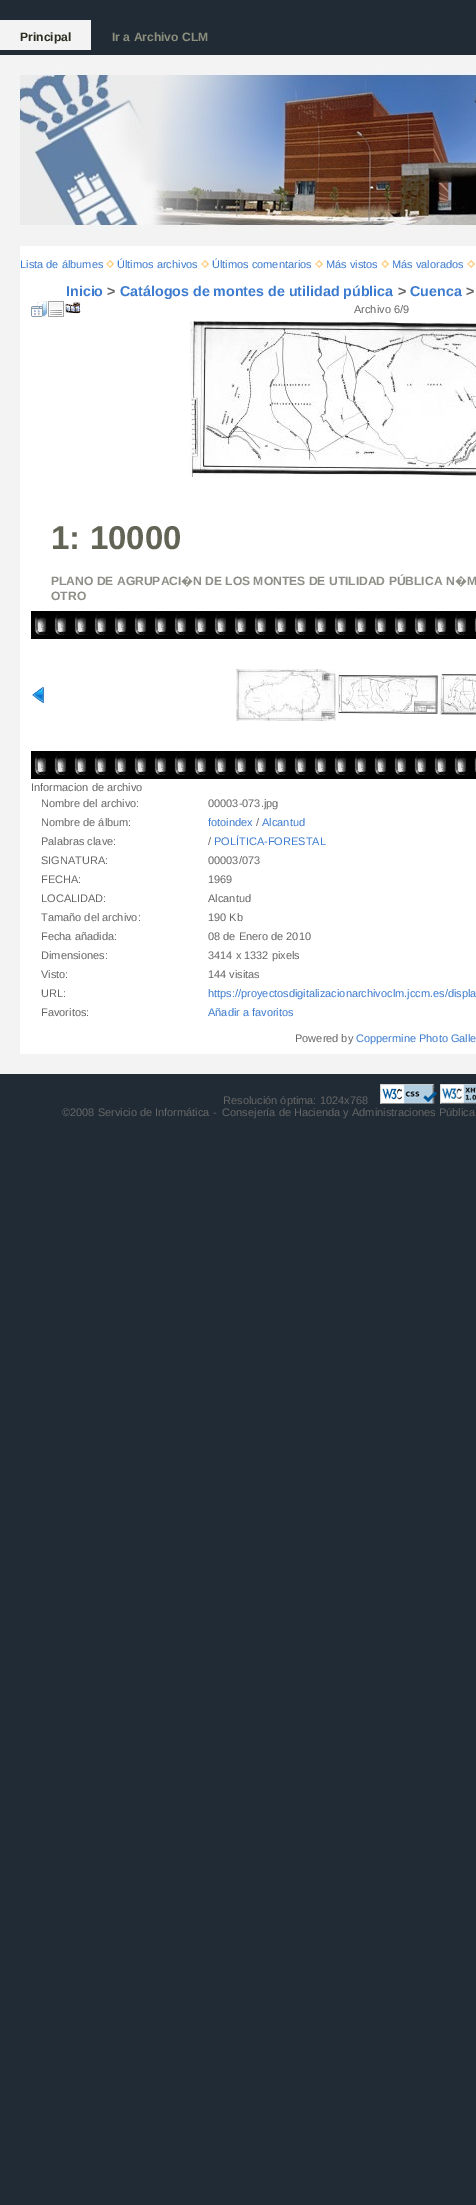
%!PS
<< /PageSize [476 2205] >> setpagedevice
/rgb { dup -16 bitshift 255 div exch dup -8 bitshift 255 and 255 div exch 255 and 255 div setrgbcolor } def
/font { [ exch dup neg 0 0 3 -1 roll 0 0 ] selectfont } def
/text { moveto show } def
/picture { 5 dict begin { /h /w /y /x /name } { exch def } forall
  gsave x y translate w h scale
  w h 8 [w 0 0 h 0 0] name (r) file false 3 colorimage grestore end } def
0 2205 translate 1 -1 scale
4 setmiterlimit
/s1 { /LiberationSans-Bold 12.1 font 16#2C2E22 rgb } def
/s2 { /LiberationSans-Bold 12.1 font 16#8C8F7D rgb } def
/s3 { /LiberationSans-Regular 11 font 16#3C7BCF rgb } def
/s4 { /LiberationSans-Bold 14.25 font 16#3C7BCF rgb } def
/s5 { /LiberationSans-Bold 14.25 font 16#666666 rgb } def
/s6 { /LiberationSans-Regular 11 font 16#666666 rgb } def
/s7 { /LiberationSans-Bold 33 font 16#626456 rgb } def
/s8 { /LiberationSans-Bold 12.1 font 16#8D8E85 rgb } def
/s9 { /NotoSans-Bold 12.1 font 16#8D8E85 rgb } def
16#212B35 rgb
0 0 476 2205 rectfill
16#F3F3F3 rgb
0 20 91 30 rectfill
s1
(Principal) 20 41 text
s2
(Ir a Archivo CLM) 112 41 text
(pic1.raw) 0 55 476 191 picture
16#FFFFFF rgb
20 246 456 808 rectfill
16#F3F3F3 rgb
20 1054 456 20 rectfill
0 246 20 828 rectfill
s3
(Lista de álbumes) 20 268 text
(pic2.raw) 106 260 8 8 picture
(Últimos archivos) 117 268 text
(pic2.raw) 201 260 8 8 picture
(Últimos comentarios) 212 268 text
(pic2.raw) 315 260 8 8 picture
(Más vistos) 326 268 text
(pic2.raw) 381 260 8 8 picture
(Más valorados) 392 268 text
(pic2.raw) 467 260 8 8 picture
s4
(Inicio) 66 296 text
s5
(>) 107 296 text
s4
(Catálogos de montes de utilidad pública) 120 296 text
s5
(>) 398 296 text
s4
(Cuenca) 410 296 text
s5
(>) 466 296 text
(pic3.raw) 31 301 16 16 picture
(pic4.raw) 48 301 16 16 picture
(pic5.raw) 65 302 16 12 picture
s6
(Archivo 6/9) 354 313 text
(pic6.raw) 190 321 286 156 picture
s7
(1: 10000) 51 549 text
s8
(PLANO DE AGRUPACI) 51 585 text
s9
(�) 181 585 text
s8
(N DE LOS MONTES DE UTILIDAD PÚBLICA N) 193 585 text
s9
(�) 455 585 text
s8
(M) 467 585 text
(OTRO) 51 600 text
(pic7.raw) 31 611 445 28 picture
(pic8.raw) 32 687 12 16 picture
(pic9.raw) 236 669 100 52 picture
(pic10.raw) 338 675 100 39 picture
(pic11.raw) 440 674 36 41 picture
(pic7.raw) 31 751 445 28 picture
s6
(Informacion de archivo) 31 791 text
(Nombre del archivo:) 41 807 text
(00003-073.jpg) 208 807 text
(Nombre de álbum:) 41 826 text
s3
(fotoindex) 208 826 text
s6
(/) 256 826 text
s3
(Alcantud) 262 826 text
s6
(Palabras clave:) 41 845 text
(/) 208 845 text
s3
(POLÍTICA-FORESTAL) 214 845 text
s6
(SIGNATURA:) 41 864 text
(00003/073) 208 864 text
(FECHA:) 41 883 text
(1969) 208 883 text
(LOCALIDAD:) 41 902 text
(Alcantud) 208 902 text
(Tamaño del archivo:) 41 921 text
(190 Kb) 208 921 text
(Fecha añadida:) 41 940 text
(08 de Enero de 2010) 208 940 text
(Dimensiones:) 41 959 text
(3414 x 1332 pixels) 208 959 text
(Visto:) 41 978 text
(144 visitas) 208 978 text
(URL:) 41 997 text
s3
(https://proyectosdigitalizacionarchivoclm.jccm.es/displa) 208 997 text
s6
(Favoritos:) 41 1016 text
s3
(Añadir a favoritos) 208 1016 text
s6
(Powered by) 295 1042 text
s3
(Coppermine Photo Galle) 356 1042 text
s6
(Resolución óptima: 1024x768) 223 1104 text
(pic12.raw) 380 1084 57 20 picture
(pic13.raw) 440 1084 36 20 picture
(©2008 Servicio de Informática -  Consejería de Hacienda y Administraciones Pública) 62 1116 text
showpage
